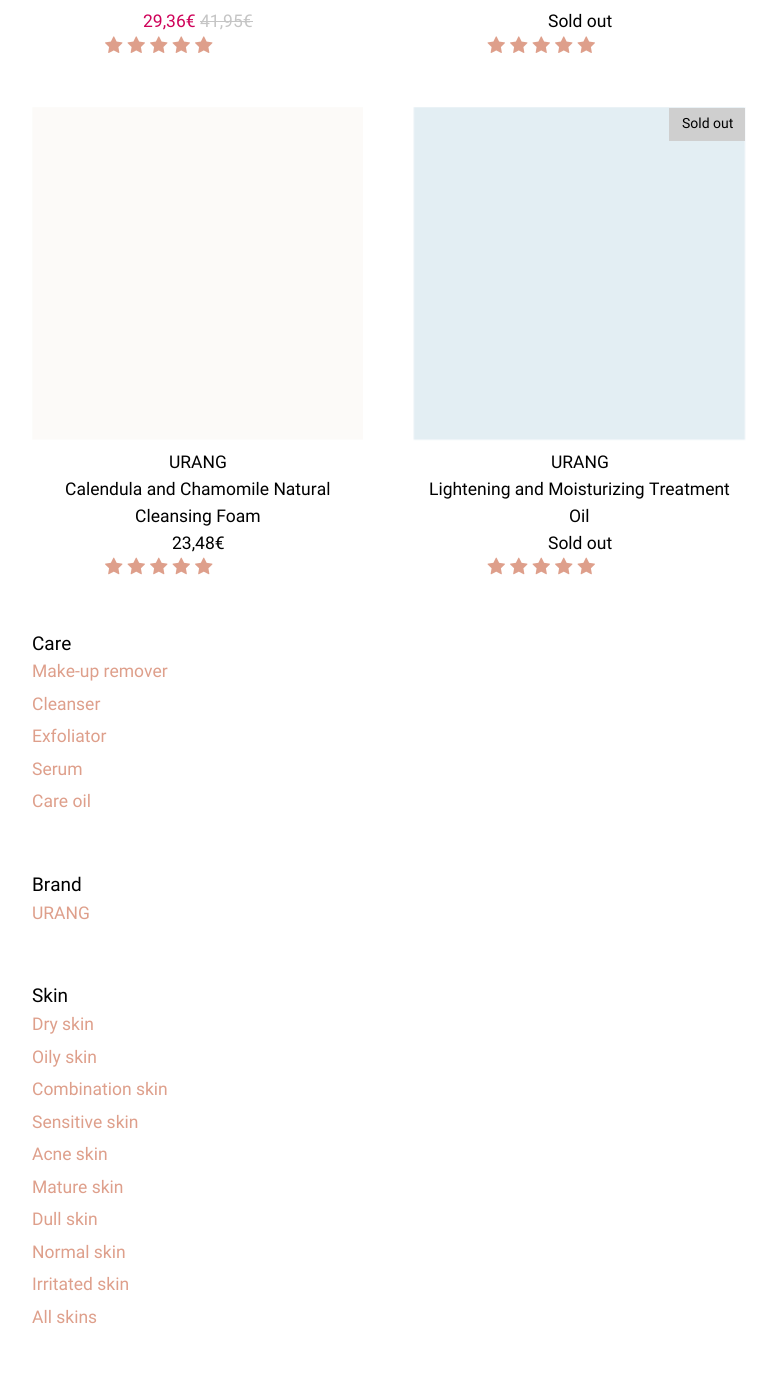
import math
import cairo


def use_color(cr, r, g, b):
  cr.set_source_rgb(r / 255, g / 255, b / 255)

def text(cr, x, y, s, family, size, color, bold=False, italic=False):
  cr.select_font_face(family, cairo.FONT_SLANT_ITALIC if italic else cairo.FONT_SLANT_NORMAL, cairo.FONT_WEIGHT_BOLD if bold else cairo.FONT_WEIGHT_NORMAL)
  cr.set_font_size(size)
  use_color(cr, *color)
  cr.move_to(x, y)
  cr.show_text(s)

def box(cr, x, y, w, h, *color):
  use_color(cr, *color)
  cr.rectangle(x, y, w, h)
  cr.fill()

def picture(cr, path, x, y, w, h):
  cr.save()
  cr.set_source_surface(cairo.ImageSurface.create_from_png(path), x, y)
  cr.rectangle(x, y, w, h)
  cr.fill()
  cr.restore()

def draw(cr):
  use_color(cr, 255, 255, 255)
  cr.paint()
  box(cr, 200, 21, 53, 1, 197, 197, 197)
  picture(cr, "img_01.png", 105, 36, 18, 17)
  picture(cr, "img_02.png", 127, 36, 18, 17)
  picture(cr, "img_01.png", 150, 36, 18, 17)
  picture(cr, "img_02.png", 172, 36, 18, 17)
  picture(cr, "img_01.png", 195, 36, 18, 17)
  picture(cr, "img_02.png", 487, 36, 18, 17)
  picture(cr, "img_01.png", 510, 36, 18, 17)
  picture(cr, "img_02.png", 532, 36, 18, 17)
  picture(cr, "img_01.png", 555, 36, 18, 17)
  picture(cr, "img_02.png", 577, 36, 18, 17)
  picture(cr, "img_03.png", 32, 107, 331, 333)
  picture(cr, "img_04.png", 105, 557, 18, 18)
  picture(cr, "img_05.png", 127, 557, 18, 18)
  picture(cr, "img_04.png", 150, 557, 18, 18)
  picture(cr, "img_05.png", 172, 557, 18, 18)
  picture(cr, "img_04.png", 195, 557, 18, 18)
  picture(cr, "img_06.png", 413, 107, 333, 334)
  box(cr, 669, 108, 76, 33, 207, 207, 207)
  picture(cr, "img_05.png", 487, 557, 18, 18)
  picture(cr, "img_04.png", 510, 557, 18, 18)
  picture(cr, "img_05.png", 532, 557, 18, 18)
  picture(cr, "img_04.png", 555, 557, 18, 18)
  picture(cr, "img_05.png", 577, 557, 18, 18)
  text(cr, 143, 27, "29,36€", "Roboto", 17.5, (207, 2, 89))
  text(cr, 200, 27, "41,95€", "Roboto", 17.5, (197, 197, 197))
  text(cr, 548, 27, "Sold out", "Roboto", 17.5, (0, 0, 0))
  text(cr, 169, 468, "URANG", "Roboto", 17.5, (0, 0, 0))
  text(cr, 65, 495, "Calendula and Chamomile Natural", "Roboto", 17.5, (0, 0, 0))
  text(cr, 135, 522, "Cleansing Foam", "Roboto", 17.5, (0, 0, 0))
  text(cr, 172, 549, "23,48€", "Roboto", 17.5, (0, 0, 0))
  text(cr, 682, 128, "Sold out", "Roboto", 14, (0, 0, 0))
  text(cr, 551, 468, "URANG", "Roboto", 17.5, (0, 0, 0))
  text(cr, 429, 495, "Lightening and Moisturizing Treatment", "Roboto", 17.5, (0, 0, 0))
  text(cr, 569, 522, "Oil", "Roboto", 17.5, (0, 0, 0))
  text(cr, 548, 549, "Sold out", "Roboto", 17.5, (0, 0, 0))
  text(cr, 32, 650, "Care", "Roboto", 19, (0, 0, 0))
  text(cr, 32, 677, "Make-up remover", "Roboto", 17.5, (222, 159, 139))
  text(cr, 32, 710, "Cleanser", "Roboto", 17.5, (222, 159, 139))
  text(cr, 32, 742, "Exfoliator", "Roboto", 17.5, (222, 159, 139))
  text(cr, 32, 775, "Serum", "Roboto", 17.5, (222, 159, 139))
  text(cr, 32, 807, "Care oil", "Roboto", 17.5, (222, 159, 139))
  text(cr, 32, 891, "Brand", "Roboto", 19, (0, 0, 0))
  text(cr, 32, 919, "URANG", "Roboto", 17.5, (222, 159, 139))
  text(cr, 32, 1002, "Skin", "Roboto", 19, (0, 0, 0))
  text(cr, 32, 1030, "Dry skin", "Roboto", 17.5, (222, 159, 139))
  text(cr, 32, 1063, "Oily skin", "Roboto", 17.5, (222, 159, 139))
  text(cr, 32, 1095, "Combination skin", "Roboto", 17.5, (222, 159, 139))
  text(cr, 32, 1128, "Sensitive skin", "Roboto", 17.5, (222, 159, 139))
  text(cr, 32, 1160, "Acne skin", "Roboto", 17.5, (222, 159, 139))
  text(cr, 32, 1193, "Mature skin", "Roboto", 17.5, (222, 159, 139))
  text(cr, 32, 1225, "Dull skin", "Roboto", 17.5, (222, 159, 139))
  text(cr, 32, 1258, "Normal skin", "Roboto", 17.5, (222, 159, 139))
  text(cr, 32, 1290, "Irritated skin", "Roboto", 17.5, (222, 159, 139))
  text(cr, 32, 1323, "All skins", "Roboto", 17.5, (222, 159, 139))


surface = cairo.ImageSurface(cairo.FORMAT_RGB24, 777, 1373)
cr = cairo.Context(surface)
options = cairo.FontOptions()
options.set_hint_metrics(cairo.HINT_METRICS_OFF)
options.set_hint_style(cairo.HINT_STYLE_NONE)
cr.set_font_options(options)
cr.set_miter_limit(4)
draw(cr)
surface.write_to_png("out.png")
